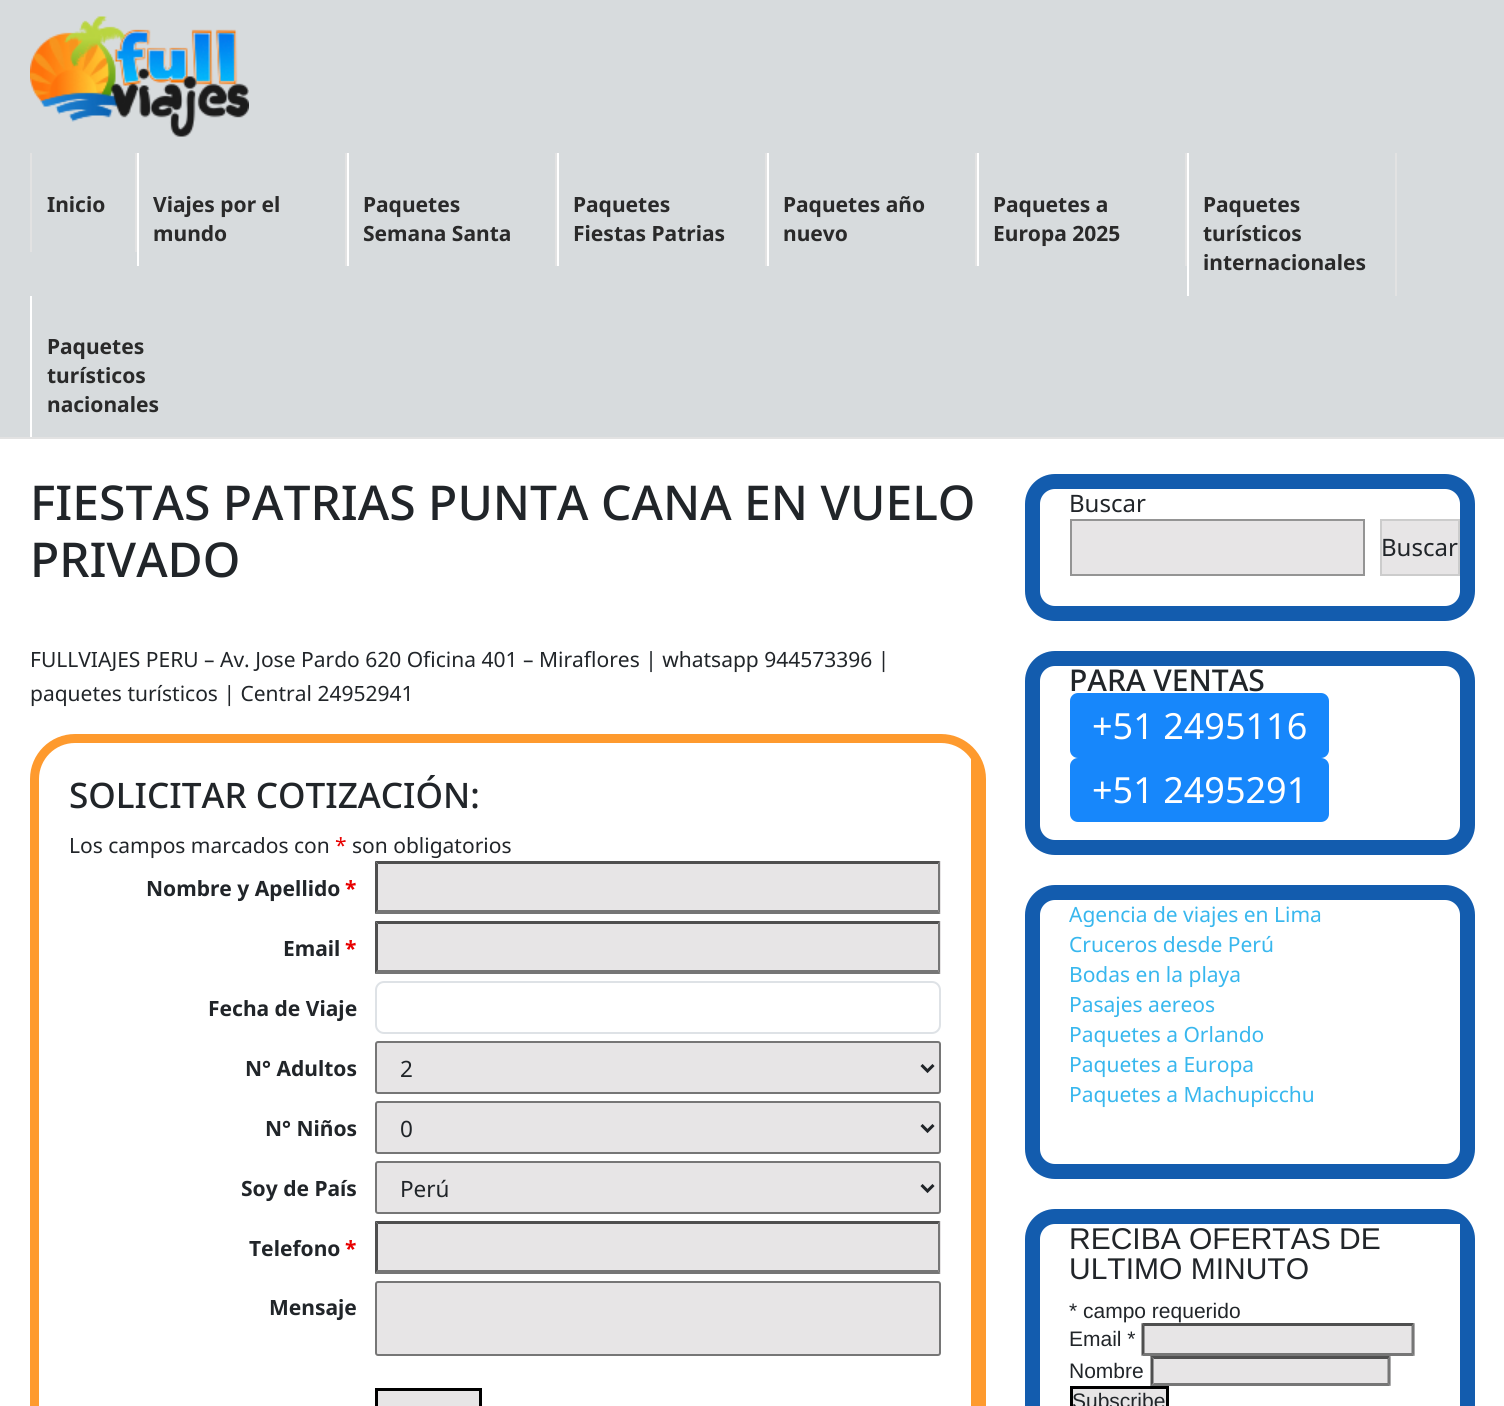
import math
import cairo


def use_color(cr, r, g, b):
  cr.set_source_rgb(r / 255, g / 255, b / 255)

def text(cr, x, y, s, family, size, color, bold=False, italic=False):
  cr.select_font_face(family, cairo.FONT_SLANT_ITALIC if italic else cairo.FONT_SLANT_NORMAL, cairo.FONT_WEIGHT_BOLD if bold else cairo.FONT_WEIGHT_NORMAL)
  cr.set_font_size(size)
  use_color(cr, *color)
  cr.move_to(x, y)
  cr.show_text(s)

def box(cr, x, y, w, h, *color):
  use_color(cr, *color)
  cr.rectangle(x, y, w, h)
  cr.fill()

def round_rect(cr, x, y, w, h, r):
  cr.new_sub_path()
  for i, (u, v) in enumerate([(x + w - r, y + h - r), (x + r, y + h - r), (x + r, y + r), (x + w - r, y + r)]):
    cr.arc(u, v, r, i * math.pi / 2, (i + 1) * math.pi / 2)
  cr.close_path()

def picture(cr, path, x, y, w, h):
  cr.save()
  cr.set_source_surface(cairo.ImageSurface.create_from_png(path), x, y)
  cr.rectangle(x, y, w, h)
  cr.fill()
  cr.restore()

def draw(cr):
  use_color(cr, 255, 255, 255)
  cr.paint()
  box(cr, 0, 0, 1504, 437, 215, 219, 221)
  picture(cr, "img_01.png", 30, 16, 219, 121)
  box(cr, 135, 153, 2, 99, 226, 226, 226)
  box(cr, 30, 153, 2, 99, 226, 226, 226)
  box(cr, 345, 153, 2, 113, 226, 226, 226)
  box(cr, 137, 153, 2, 113, 255, 255, 255)
  box(cr, 555, 153, 2, 113, 226, 226, 226)
  box(cr, 347, 153, 2, 113, 255, 255, 255)
  box(cr, 765, 153, 2, 113, 226, 226, 226)
  box(cr, 557, 153, 2, 113, 255, 255, 255)
  box(cr, 975, 153, 2, 113, 226, 226, 226)
  box(cr, 767, 153, 2, 113, 255, 255, 255)
  box(cr, 1185, 153, 2, 113, 226, 226, 226)
  box(cr, 977, 153, 2, 113, 255, 255, 255)
  box(cr, 1395, 153, 2, 143, 226, 226, 226)
  box(cr, 1187, 153, 2, 143, 255, 255, 255)
  box(cr, 30, 296, 2, 142, 255, 255, 255)
  box(cr, 0, 437, 1504, 2, 226, 226, 226)
  round_rect(cr, 34.5, 738.5, 947, 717, 40.5)
  use_color(cr, 254, 154, 46)
  cr.set_line_width(9)
  cr.stroke()
  box(cr, 971, 756, 6, 650, 254, 154, 46)
  box(cr, 375, 861, 566, 53, 231, 229, 230)
  use_color(cr, 79, 79, 79)
  cr.new_path()
  cr.move_to(375, 861)
  cr.line_to(940, 861)
  cr.line_to(938, 864)
  cr.line_to(378, 864)
  cr.close_path()
  cr.fill()
  use_color(cr, 118, 118, 118)
  cr.new_path()
  cr.move_to(940, 861)
  cr.line_to(940, 914)
  cr.line_to(938, 910)
  cr.line_to(938, 864)
  cr.close_path()
  cr.fill()
  cr.new_path()
  cr.move_to(940, 914)
  cr.line_to(375, 914)
  cr.line_to(378, 910)
  cr.line_to(938, 910)
  cr.close_path()
  cr.fill()
  use_color(cr, 79, 79, 79)
  cr.new_path()
  cr.move_to(375, 914)
  cr.line_to(375, 861)
  cr.line_to(378, 864)
  cr.line_to(378, 910)
  cr.close_path()
  cr.fill()
  box(cr, 375, 921, 566, 53, 231, 229, 230)
  use_color(cr, 79, 79, 79)
  cr.new_path()
  cr.move_to(375, 921)
  cr.line_to(940, 921)
  cr.line_to(938, 924)
  cr.line_to(378, 924)
  cr.close_path()
  cr.fill()
  use_color(cr, 118, 118, 118)
  cr.new_path()
  cr.move_to(940, 921)
  cr.line_to(940, 974)
  cr.line_to(938, 970)
  cr.line_to(938, 924)
  cr.close_path()
  cr.fill()
  cr.new_path()
  cr.move_to(940, 974)
  cr.line_to(375, 974)
  cr.line_to(378, 970)
  cr.line_to(938, 970)
  cr.close_path()
  cr.fill()
  use_color(cr, 79, 79, 79)
  cr.new_path()
  cr.move_to(375, 974)
  cr.line_to(375, 921)
  cr.line_to(378, 924)
  cr.line_to(378, 970)
  cr.close_path()
  cr.fill()
  round_rect(cr, 376, 982, 564, 51, 8)
  use_color(cr, 222, 226, 230)
  cr.set_line_width(2)
  cr.stroke()
  use_color(cr, 231, 229, 230)
  round_rect(cr, 376, 1042, 564, 51, 2)
  cr.fill_preserve()
  use_color(cr, 118, 118, 118)
  cr.stroke()
  cr.new_path()
  cr.move_to(921.5, 1065)
  cr.line_to(927.5, 1071)
  cr.line_to(933.5, 1065)
  use_color(cr, 33, 37, 41)
  cr.set_line_width(3)
  cr.stroke()
  use_color(cr, 231, 229, 230)
  round_rect(cr, 376, 1102, 564, 51, 2)
  cr.fill_preserve()
  use_color(cr, 118, 118, 118)
  cr.set_line_width(2)
  cr.stroke()
  cr.new_path()
  cr.move_to(921.5, 1125)
  cr.line_to(927.5, 1131)
  cr.line_to(933.5, 1125)
  use_color(cr, 33, 37, 41)
  cr.set_line_width(3)
  cr.stroke()
  use_color(cr, 231, 229, 230)
  round_rect(cr, 376, 1162, 564, 51, 2)
  cr.fill_preserve()
  use_color(cr, 118, 118, 118)
  cr.set_line_width(2)
  cr.stroke()
  cr.new_path()
  cr.move_to(921.5, 1185)
  cr.line_to(927.5, 1191)
  cr.line_to(933.5, 1185)
  use_color(cr, 33, 37, 41)
  cr.set_line_width(3)
  cr.stroke()
  box(cr, 375, 1221, 566, 53, 231, 229, 230)
  use_color(cr, 79, 79, 79)
  cr.new_path()
  cr.move_to(375, 1221)
  cr.line_to(940, 1221)
  cr.line_to(938, 1224)
  cr.line_to(378, 1224)
  cr.close_path()
  cr.fill()
  use_color(cr, 118, 118, 118)
  cr.new_path()
  cr.move_to(940, 1221)
  cr.line_to(940, 1274)
  cr.line_to(938, 1270)
  cr.line_to(938, 1224)
  cr.close_path()
  cr.fill()
  cr.new_path()
  cr.move_to(940, 1274)
  cr.line_to(375, 1274)
  cr.line_to(378, 1270)
  cr.line_to(938, 1270)
  cr.close_path()
  cr.fill()
  use_color(cr, 79, 79, 79)
  cr.new_path()
  cr.move_to(375, 1274)
  cr.line_to(375, 1221)
  cr.line_to(378, 1224)
  cr.line_to(378, 1270)
  cr.close_path()
  cr.fill()
  use_color(cr, 231, 229, 230)
  round_rect(cr, 376, 1282, 564, 73, 2)
  cr.fill_preserve()
  use_color(cr, 118, 118, 118)
  cr.set_line_width(2)
  cr.stroke()
  use_color(cr, 231, 229, 230)
  cr.rectangle(376.5, 1389.5, 104, 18)
  cr.fill_preserve()
  use_color(cr, 0, 0, 0)
  cr.set_line_width(3)
  cr.stroke()
  round_rect(cr, 1032.5, 481.5, 435, 132, 22.5)
  use_color(cr, 19, 92, 174)
  cr.set_line_width(15)
  cr.stroke()
  use_color(cr, 231, 229, 230)
  cr.rectangle(1071, 520, 293, 55)
  cr.fill_preserve()
  use_color(cr, 148, 148, 148)
  cr.set_line_width(2)
  cr.stroke()
  use_color(cr, 231, 229, 230)
  cr.rectangle(1381, 520, 78, 55)
  cr.fill_preserve()
  use_color(cr, 204, 204, 204)
  cr.stroke()
  round_rect(cr, 1032.5, 658.5, 435, 189, 22.5)
  use_color(cr, 19, 92, 174)
  cr.set_line_width(15)
  cr.stroke()
  use_color(cr, 23, 135, 251)
  round_rect(cr, 1070, 693, 259, 65, 8)
  cr.fill()
  round_rect(cr, 1070, 758, 259, 64, 8)
  cr.fill()
  round_rect(cr, 1032.5, 892.5, 435, 279, 22.5)
  use_color(cr, 19, 92, 174)
  cr.stroke()
  round_rect(cr, 1032.5, 1216.5, 435, 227, 22.5)
  cr.stroke()
  box(cr, 1445, 1224, 15, 15, 255, 255, 255)
  box(cr, 1142, 1323, 273, 33, 231, 229, 230)
  use_color(cr, 79, 79, 79)
  cr.new_path()
  cr.move_to(1142, 1323)
  cr.line_to(1414, 1323)
  cr.line_to(1412, 1326)
  cr.line_to(1144, 1326)
  cr.close_path()
  cr.fill()
  use_color(cr, 118, 118, 118)
  cr.new_path()
  cr.move_to(1414.5, 1323)
  cr.line_to(1414.5, 1356)
  cr.line_to(1411.5, 1353)
  cr.line_to(1411.5, 1326)
  cr.close_path()
  cr.fill()
  cr.new_path()
  cr.move_to(1414, 1356)
  cr.line_to(1142, 1356)
  cr.line_to(1144, 1353)
  cr.line_to(1412, 1353)
  cr.close_path()
  cr.fill()
  use_color(cr, 79, 79, 79)
  cr.new_path()
  cr.move_to(1141.5, 1356)
  cr.line_to(1141.5, 1323)
  cr.line_to(1144.5, 1326)
  cr.line_to(1144.5, 1353)
  cr.close_path()
  cr.fill()
  box(cr, 1151, 1356, 240, 30, 231, 229, 230)
  use_color(cr, 79, 79, 79)
  cr.new_path()
  cr.move_to(1150, 1356)
  cr.line_to(1390, 1356)
  cr.line_to(1388, 1359)
  cr.line_to(1154, 1359)
  cr.close_path()
  cr.fill()
  use_color(cr, 118, 118, 118)
  cr.new_path()
  cr.move_to(1390.5, 1356)
  cr.line_to(1390.5, 1386)
  cr.line_to(1387.5, 1383)
  cr.line_to(1387.5, 1359)
  cr.close_path()
  cr.fill()
  cr.new_path()
  cr.move_to(1390, 1386)
  cr.line_to(1150, 1386)
  cr.line_to(1154, 1383)
  cr.line_to(1388, 1383)
  cr.close_path()
  cr.fill()
  use_color(cr, 79, 79, 79)
  cr.new_path()
  cr.move_to(1150.5, 1386)
  cr.line_to(1150.5, 1356)
  cr.line_to(1153.5, 1359)
  cr.line_to(1153.5, 1383)
  cr.close_path()
  cr.fill()
  use_color(cr, 231, 229, 230)
  cr.rectangle(1071.5, 1387.5, 96, 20)
  cr.fill_preserve()
  use_color(cr, 0, 0, 0)
  cr.set_line_width(3)
  cr.stroke()
  text(cr, 47, 212, "Inicio", "Noto Sans", 21, (42, 42, 42), bold=True)
  text(cr, 153, 212, "Viajes por el", "Noto Sans", 21, (42, 42, 42), bold=True)
  text(cr, 153, 241, "mundo", "Noto Sans", 21, (42, 42, 42), bold=True)
  text(cr, 363, 212, "Paquetes", "Noto Sans", 21, (42, 42, 42), bold=True)
  text(cr, 363, 241, "Semana Santa", "Noto Sans", 21, (42, 42, 42), bold=True)
  text(cr, 573, 212, "Paquetes", "Noto Sans", 21, (42, 42, 42), bold=True)
  text(cr, 573, 241, "Fiestas Patrias", "Noto Sans", 21, (42, 42, 42), bold=True)
  text(cr, 783, 212, "Paquetes año", "Noto Sans", 21, (42, 42, 42), bold=True)
  text(cr, 783, 241, "nuevo", "Noto Sans", 21, (42, 42, 42), bold=True)
  text(cr, 993, 212, "Paquetes a", "Noto Sans", 21, (42, 42, 42), bold=True)
  text(cr, 993, 241, "Europa 2025", "Noto Sans", 21, (42, 42, 42), bold=True)
  text(cr, 1203, 212, "Paquetes", "Noto Sans", 21, (42, 42, 42), bold=True)
  text(cr, 1203, 241, "turísticos", "Noto Sans", 21, (42, 42, 42), bold=True)
  text(cr, 1203, 270, "internacionales", "Noto Sans", 21, (42, 42, 42), bold=True)
  text(cr, 47, 354, "Paquetes", "Noto Sans", 21, (42, 42, 42), bold=True)
  text(cr, 47, 383, "turísticos", "Noto Sans", 21, (42, 42, 42), bold=True)
  text(cr, 47, 412, "nacionales", "Noto Sans", 21, (42, 42, 42), bold=True)
  text(cr, 30, 520, "FIESTAS PATRIAS PUNTA CANA EN VUELO", "Noto Sans Medium", 48, (33, 37, 41))
  text(cr, 30, 577, "PRIVADO", "Noto Sans Medium", 48, (33, 37, 41))
  text(cr, 30, 667, "FULLVIAJES PERU – Av. Jose Pardo 620 Oficina 401 – Miraflores | whatsapp 944573396 |", "Noto Sans", 21, (33, 37, 41))
  text(cr, 30, 701, "paquetes turísticos | Central 24952941", "Noto Sans", 21, (33, 37, 41))
  text(cr, 69, 808, "SOLICITAR COTIZACIÓN:", "Noto Sans Medium", 35.1, (33, 37, 41))
  text(cr, 69, 853, "Los campos marcados con", "Noto Sans", 21, (33, 37, 41))
  text(cr, 335, 853, "*", "Noto Sans", 21, (232, 0, 0))
  text(cr, 352, 853, "son obligatorios", "Noto Sans", 21, (33, 37, 41))
  text(cr, 146, 896, "Nombre y Apellido", "Noto Sans", 21, (33, 37, 41), bold=True)
  text(cr, 345, 896, "*", "Noto Sans", 21, (232, 0, 0), bold=True)
  text(cr, 283, 956, "Email", "Noto Sans", 21, (33, 37, 41), bold=True)
  text(cr, 345, 956, "*", "Noto Sans", 21, (232, 0, 0), bold=True)
  text(cr, 208, 1016, "Fecha de Viaje", "Noto Sans", 21, (33, 37, 41), bold=True)
  text(cr, 245, 1076, "N° Adultos", "Noto Sans", 21, (33, 37, 41), bold=True)
  text(cr, 400, 1077, "2", "Noto Sans", 22.5, (33, 37, 41))
  text(cr, 265, 1136, "N° Niños", "Noto Sans", 21, (33, 37, 41), bold=True)
  text(cr, 400, 1137, "0", "Noto Sans", 22.5, (33, 37, 41))
  text(cr, 241, 1196, "Soy de País", "Noto Sans", 21, (33, 37, 41), bold=True)
  text(cr, 400, 1197, "Perú", "Noto Sans", 22.5, (33, 37, 41))
  text(cr, 249, 1256, "Telefono", "Noto Sans", 21, (33, 37, 41), bold=True)
  text(cr, 345, 1256, "*", "Noto Sans", 21, (232, 0, 0), bold=True)
  text(cr, 269, 1315, "Mensaje", "Noto Sans", 21, (33, 37, 41), bold=True)
  text(cr, 1069, 512, "Buscar", "Noto Sans", 24, (33, 37, 41))
  text(cr, 1381, 556, "Buscar", "Noto Sans", 24, (33, 37, 41))
  text(cr, 1069, 691, "PARA VENTAS", "Noto Sans Medium", 30, (33, 37, 41))
  text(cr, 1092, 739, "+51 2495116", "Noto Sans", 36, (255, 255, 255))
  text(cr, 1092, 803, "+51 2495291", "Noto Sans", 36, (255, 255, 255))
  text(cr, 1069, 922, "Agencia de viajes en Lima", "Noto Sans", 21, (56, 183, 238))
  text(cr, 1069, 952, "Cruceros desde Perú", "Noto Sans", 21, (56, 183, 238))
  text(cr, 1069, 982, "Bodas en la playa", "Noto Sans", 21, (56, 183, 238))
  text(cr, 1069, 1012, "Pasajes aereos", "Noto Sans", 21, (56, 183, 238))
  text(cr, 1069, 1042, "Paquetes a Orlando", "Noto Sans", 21, (56, 183, 238))
  text(cr, 1069, 1072, "Paquetes a Europa", "Noto Sans", 21, (56, 183, 238))
  text(cr, 1069, 1102, "Paquetes a Machupicchu", "Noto Sans", 21, (56, 183, 238))
  text(cr, 1069, 1249, "RECIBA OFERTAS DE", "Liberation Sans", 30, (33, 37, 41))
  text(cr, 1069, 1279, "ULTIMO MINUTO", "Liberation Sans", 30, (33, 37, 41))
  text(cr, 1069, 1318, "* campo requerido", "Liberation Sans", 21, (33, 37, 41))
  text(cr, 1069, 1346, "Email *", "Liberation Sans", 21, (33, 37, 41))
  text(cr, 1069, 1378, "Nombre", "Liberation Sans", 21, (33, 37, 41))
  text(cr, 1072, 1408, "Subscribe", "Liberation Sans", 21, (33, 37, 41))


surface = cairo.ImageSurface(cairo.FORMAT_RGB24, 1504, 1406)
cr = cairo.Context(surface)
options = cairo.FontOptions()
options.set_hint_metrics(cairo.HINT_METRICS_OFF)
options.set_hint_style(cairo.HINT_STYLE_NONE)
cr.set_font_options(options)
cr.set_miter_limit(4)
draw(cr)
surface.write_to_png("out.png")
